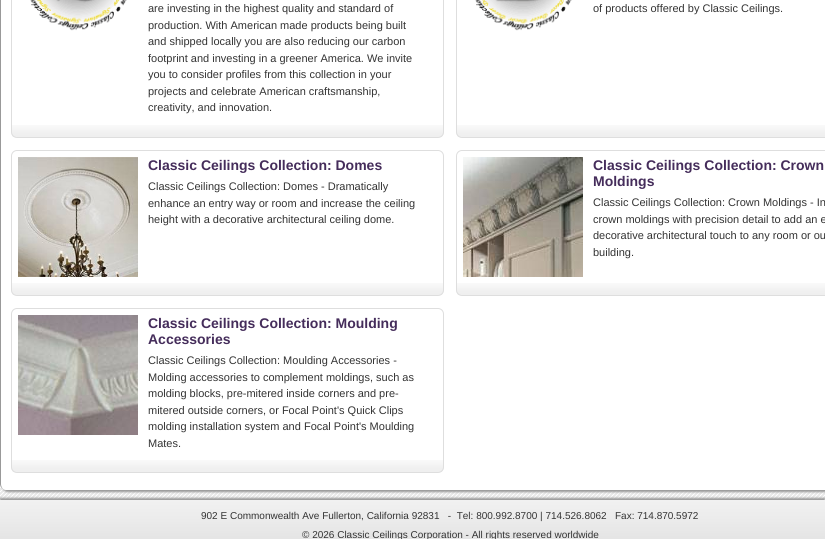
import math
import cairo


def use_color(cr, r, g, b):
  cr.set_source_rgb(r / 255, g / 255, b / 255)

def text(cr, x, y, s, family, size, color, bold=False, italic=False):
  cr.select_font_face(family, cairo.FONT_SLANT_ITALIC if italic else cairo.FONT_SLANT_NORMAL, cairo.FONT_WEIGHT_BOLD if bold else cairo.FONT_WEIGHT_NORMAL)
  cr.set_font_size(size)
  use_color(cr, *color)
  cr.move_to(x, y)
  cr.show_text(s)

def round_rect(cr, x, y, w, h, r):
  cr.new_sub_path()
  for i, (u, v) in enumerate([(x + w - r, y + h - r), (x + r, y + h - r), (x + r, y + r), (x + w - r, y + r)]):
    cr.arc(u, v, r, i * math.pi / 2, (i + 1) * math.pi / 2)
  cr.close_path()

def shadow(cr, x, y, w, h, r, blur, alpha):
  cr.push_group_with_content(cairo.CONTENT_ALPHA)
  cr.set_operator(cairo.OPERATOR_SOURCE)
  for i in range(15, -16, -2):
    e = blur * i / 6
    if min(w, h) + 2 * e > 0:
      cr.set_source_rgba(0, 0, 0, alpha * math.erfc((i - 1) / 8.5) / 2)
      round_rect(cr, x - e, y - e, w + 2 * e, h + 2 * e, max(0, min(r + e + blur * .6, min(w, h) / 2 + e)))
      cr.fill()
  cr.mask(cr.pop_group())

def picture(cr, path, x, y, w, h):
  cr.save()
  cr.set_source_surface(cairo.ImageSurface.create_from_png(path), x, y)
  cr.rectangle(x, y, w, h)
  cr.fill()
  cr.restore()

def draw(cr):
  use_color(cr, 255, 255, 255)
  cr.paint()
  picture(cr, "img_01.png", 0, 484, 825, 16)
  use_color(cr, 153, 153, 153)
  shadow(cr, 2, -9, 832, 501, 6, 1, 1)
  use_color(cr, 255, 255, 255)
  round_rect(cr, 0, -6, 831, 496, 6)
  cr.fill()
  use_color(cr, 153, 153, 153)
  cr.set_fill_rule(cairo.FILL_RULE_EVEN_ODD)
  cr.new_path()
  cr.move_to(6, -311)
  cr.line_to(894, -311)
  cr.curve_to(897, -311, 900, -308, 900, -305)
  cr.line_to(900, 484)
  cr.curve_to(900, 487, 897, 490, 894, 490)
  cr.line_to(6, 490)
  cr.curve_to(3, 490, 0, 487, 0, 484)
  cr.line_to(0, -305)
  cr.curve_to(0, -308, 3, -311, 6, -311)
  cr.close_path()
  cr.move_to(6, -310)
  cr.line_to(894, -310)
  cr.curve_to(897, -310, 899, -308, 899, -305)
  cr.line_to(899, 484)
  cr.curve_to(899, 487, 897, 490, 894, 490)
  cr.line_to(6, 490)
  cr.curve_to(3, 490, 1, 487, 1, 484)
  cr.line_to(1, -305)
  cr.curve_to(1, -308, 3, -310, 6, -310)
  cr.close_path()
  cr.fill()
  picture(cr, "img_02.png", 11, 125, 433, 12)
  round_rect(cr, 11.5, -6.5, 432, 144, 5.5)
  use_color(cr, 222, 222, 222)
  cr.set_line_width(1)
  cr.stroke()
  picture(cr, "img_03.png", 30, 0, 97, 31)
  picture(cr, "img_04.png", 456, 125, 369, 12)
  round_rect(cr, 456.5, -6.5, 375, 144, 5.5)
  cr.stroke()
  picture(cr, "img_05.png", 475, 0, 97, 31)
  picture(cr, "img_02.png", 11, 283, 433, 12)
  round_rect(cr, 11.5, 150.5, 432, 145, 5.5)
  cr.stroke()
  picture(cr, "img_06.png", 18, 157, 120, 120)
  picture(cr, "img_04.png", 456, 283, 369, 12)
  round_rect(cr, 456.5, 150.5, 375, 145, 5.5)
  cr.stroke()
  picture(cr, "img_07.png", 463, 157, 120, 120)
  picture(cr, "img_02.png", 11, 460, 433, 12)
  round_rect(cr, 11.5, 308.5, 432, 164, 5.5)
  cr.stroke()
  picture(cr, "img_08.png", 18, 315, 120, 120)
  use_color(cr, 153, 153, 153)
  shadow(cr, 0, 498, 825, 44, 0, 1, 1)
  picture(cr, "img_09.png", 0, 500, 825, 39)
  text(cr, 148, 12, "are investing in the highest quality and standard of", "Liberation Sans", 11, (51, 51, 51))
  text(cr, 148, 29, "production. With American made products being built", "Liberation Sans", 11, (51, 51, 51))
  text(cr, 148, 45, "and shipped locally you are also reducing our carbon", "Liberation Sans", 11, (51, 51, 51))
  text(cr, 148, 62, "footprint and investing in a greener America. We invite", "Liberation Sans", 11, (51, 51, 51))
  text(cr, 148, 78, "you to consider profiles from this collection in your", "Liberation Sans", 11, (51, 51, 51))
  text(cr, 148, 95, "projects and celebrate American craftsmanship,", "Liberation Sans", 11, (51, 51, 51))
  text(cr, 148, 111, "creativity, and innovation.", "Liberation Sans", 11, (51, 51, 51))
  text(cr, 593, 12, "of products offered by Classic Ceilings.", "Liberation Sans", 11, (51, 51, 51))
  text(cr, 148, 170, "Classic Ceilings Collection: Domes", "Liberation Sans", 14, (69, 45, 91), bold=True)
  text(cr, 148, 190, "Classic Ceilings Collection: Domes - Dramatically", "Liberation Sans", 11, (51, 51, 51))
  text(cr, 148, 207, "enhance an entry way or room and increase the ceiling", "Liberation Sans", 11, (51, 51, 51))
  text(cr, 148, 223, "height with a decorative architectural ceiling dome.", "Liberation Sans", 11, (51, 51, 51))
  text(cr, 593, 170, "Classic Ceilings Collection: Crown", "Liberation Sans", 14, (69, 45, 91), bold=True)
  text(cr, 593, 186, "Moldings", "Liberation Sans", 14, (69, 45, 91), bold=True)
  text(cr, 593, 206, "Classic Ceilings Collection: Crown Moldings - In", "Liberation Sans", 11, (51, 51, 51))
  text(cr, 593, 223, "crown moldings with precision detail to add an e", "Liberation Sans", 11, (51, 51, 51))
  text(cr, 593, 239, "decorative architectural touch to any room or ou", "Liberation Sans", 11, (51, 51, 51))
  text(cr, 593, 256, "building.", "Liberation Sans", 11, (51, 51, 51))
  text(cr, 148, 328, "Classic Ceilings Collection: Moulding", "Liberation Sans", 14, (69, 45, 91), bold=True)
  text(cr, 148, 344, "Accessories", "Liberation Sans", 14, (69, 45, 91), bold=True)
  text(cr, 148, 364, "Classic Ceilings Collection: Moulding Accessories -", "Liberation Sans", 11, (51, 51, 51))
  text(cr, 148, 381, "Molding accessories to complement moldings, such as", "Liberation Sans", 11, (51, 51, 51))
  text(cr, 148, 397, "molding blocks, pre-mitered inside corners and pre-", "Liberation Sans", 11, (51, 51, 51))
  text(cr, 148, 414, "mitered outside corners, or Focal Point's Quick Clips", "Liberation Sans", 11, (51, 51, 51))
  text(cr, 148, 430, "molding installation system and Focal Point's Moulding", "Liberation Sans", 11, (51, 51, 51))
  text(cr, 148, 447, "Mates.", "Liberation Sans", 11, (51, 51, 51))
  text(cr, 201, 519, "902 E Commonwealth Ave Fullerton, California 92831   -  Tel: 800.992.8700 | 714.526.8062   Fax: 714.870.5972", "Liberation Sans", 10, (51, 51, 51))
  text(cr, 302, 538, "© 2026 Classic Ceilings Corporation - All rights reserved worldwide", "Liberation Sans", 10, (51, 51, 51))


surface = cairo.ImageSurface(cairo.FORMAT_RGB24, 825, 539)
cr = cairo.Context(surface)
options = cairo.FontOptions()
options.set_hint_metrics(cairo.HINT_METRICS_OFF)
options.set_hint_style(cairo.HINT_STYLE_NONE)
cr.set_font_options(options)
cr.set_miter_limit(4)
draw(cr)
surface.write_to_png("out.png")
